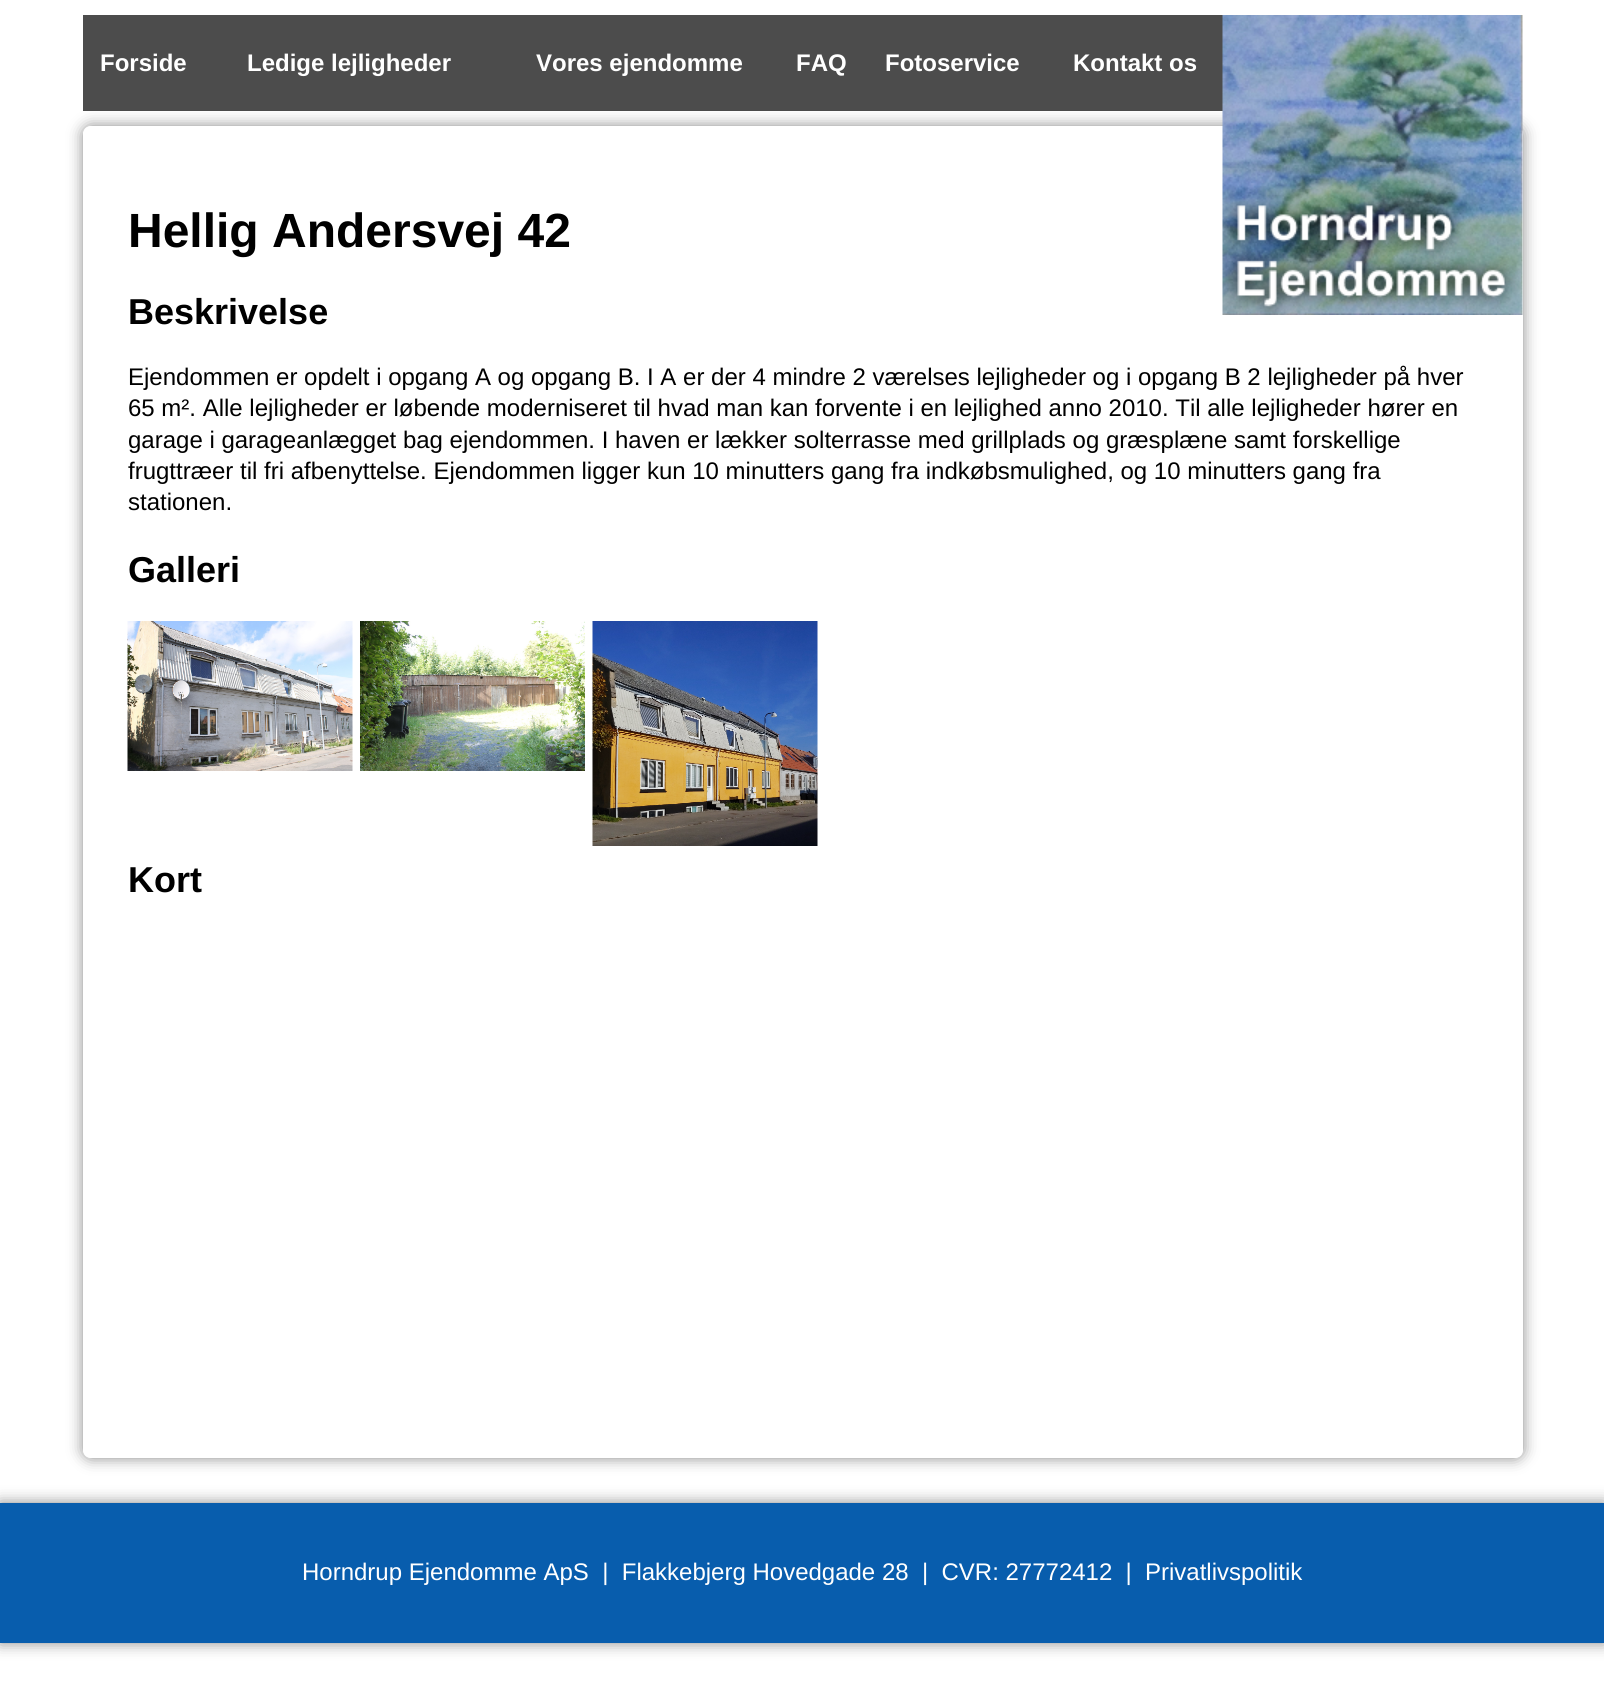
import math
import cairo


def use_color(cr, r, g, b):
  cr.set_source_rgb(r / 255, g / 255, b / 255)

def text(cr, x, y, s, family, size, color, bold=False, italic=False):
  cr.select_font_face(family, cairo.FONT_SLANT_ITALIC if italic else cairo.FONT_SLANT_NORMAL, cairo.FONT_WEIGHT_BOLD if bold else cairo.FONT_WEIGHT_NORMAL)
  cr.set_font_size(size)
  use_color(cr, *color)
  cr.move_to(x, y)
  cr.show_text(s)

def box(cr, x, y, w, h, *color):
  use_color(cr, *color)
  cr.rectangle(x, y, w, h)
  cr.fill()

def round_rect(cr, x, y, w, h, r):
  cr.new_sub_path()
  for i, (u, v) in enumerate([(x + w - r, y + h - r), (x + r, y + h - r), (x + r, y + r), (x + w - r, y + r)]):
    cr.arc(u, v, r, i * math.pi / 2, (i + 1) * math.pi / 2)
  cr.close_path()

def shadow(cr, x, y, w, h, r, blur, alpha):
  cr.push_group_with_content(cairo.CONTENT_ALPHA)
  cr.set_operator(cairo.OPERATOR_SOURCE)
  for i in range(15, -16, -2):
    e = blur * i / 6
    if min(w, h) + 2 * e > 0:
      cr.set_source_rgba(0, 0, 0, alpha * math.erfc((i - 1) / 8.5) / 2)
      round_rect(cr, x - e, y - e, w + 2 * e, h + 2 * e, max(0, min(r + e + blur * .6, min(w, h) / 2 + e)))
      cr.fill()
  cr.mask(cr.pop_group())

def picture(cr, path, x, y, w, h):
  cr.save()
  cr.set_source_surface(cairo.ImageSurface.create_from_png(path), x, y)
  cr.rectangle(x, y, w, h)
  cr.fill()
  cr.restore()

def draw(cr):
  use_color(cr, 255, 255, 255)
  cr.paint()
  cr.save()
  cr.set_fill_rule(cairo.FILL_RULE_EVEN_ODD)
  cr.new_path()
  cr.move_to(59, 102)
  cr.line_to(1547, 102)
  cr.line_to(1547, 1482)
  cr.line_to(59, 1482)
  cr.close_path()
  cr.move_to(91, 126)
  cr.line_to(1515, 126)
  cr.curve_to(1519.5, 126, 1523, 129.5, 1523, 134)
  cr.line_to(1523, 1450)
  cr.curve_to(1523, 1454.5, 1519.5, 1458, 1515, 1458)
  cr.line_to(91, 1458)
  cr.curve_to(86.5, 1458, 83, 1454.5, 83, 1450)
  cr.line_to(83, 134)
  cr.curve_to(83, 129.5, 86.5, 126, 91, 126)
  cr.close_path()
  cr.clip()
  use_color(cr, 136, 136, 136)
  shadow(cr, 83, 126, 1440, 1332, 8, 7.5, 1)
  cr.restore()
  box(cr, 83, 15, 1140, 96, 76, 76, 76)
  picture(cr, "img_01.png", 1222, 15, 301, 300)
  picture(cr, "img_02.png", 127, 621, 226, 150)
  picture(cr, "img_03.png", 360, 621, 225, 150)
  picture(cr, "img_04.png", 592, 621, 226, 225)
  use_color(cr, 136, 136, 136)
  shadow(cr, 0, 1503, 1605, 140, 0, 7.5, 1)
  box(cr, 0, 1503, 1604, 140, 8, 93, 173)
  text(cr, 100, 71, "Forside", "Liberation Sans", 24, (255, 255, 255), bold=True)
  text(cr, 247, 71, "Ledige lejligheder", "Liberation Sans", 24, (255, 255, 255), bold=True)
  text(cr, 536, 71, "Vores ejendomme", "Liberation Sans", 24, (255, 255, 255), bold=True)
  text(cr, 796, 71, "FAQ", "Liberation Sans", 24, (255, 255, 255), bold=True)
  text(cr, 885, 71, "Fotoservice", "Liberation Sans", 24, (255, 255, 255), bold=True)
  text(cr, 1073, 71, "Kontakt os", "Liberation Sans", 24, (255, 255, 255), bold=True)
  text(cr, 128, 247, "Hellig Andersvej 42", "Liberation Sans", 48, (0, 0, 0), bold=True)
  text(cr, 128, 324, "Beskrivelse", "Liberation Sans", 36, (0, 0, 0), bold=True)
  text(cr, 128, 385, "Ejendommen er opdelt i opgang A og opgang B. I A er der 4 mindre 2 værelses lejligheder og i opgang B 2 lejligheder på hver", "Liberation Sans", 24, (0, 0, 0))
  text(cr, 128, 416, "65 m². Alle lejligheder er løbende moderniseret til hvad man kan forvente i en lejlighed anno 2010. Til alle lejligheder hører en", "Liberation Sans", 24, (0, 0, 0))
  text(cr, 128, 448, "garage i garageanlægget bag ejendommen. I haven er lækker solterrasse med grillplads og græsplæne samt forskellige", "Liberation Sans", 24, (0, 0, 0))
  text(cr, 128, 479, "frugttræer til fri afbenyttelse. Ejendommen ligger kun 10 minutters gang fra indkøbsmulighed, og 10 minutters gang fra", "Liberation Sans", 24, (0, 0, 0))
  text(cr, 128, 510, "stationen.", "Liberation Sans", 24, (0, 0, 0))
  text(cr, 128, 582, "Galleri", "Liberation Sans", 36, (0, 0, 0), bold=True)
  text(cr, 128, 892, "Kort", "Liberation Sans", 36, (0, 0, 0), bold=True)
  text(cr, 302, 1580, "Horndrup Ejendomme ApS  |  Flakkebjerg Hovedgade 28  |  CVR: 27772412  |", "Liberation Sans", 24, (255, 255, 255))
  text(cr, 1145, 1580, "Privatlivspolitik", "Liberation Sans", 24, (255, 255, 255))


surface = cairo.ImageSurface(cairo.FORMAT_RGB24, 1604, 1698)
cr = cairo.Context(surface)
options = cairo.FontOptions()
options.set_hint_metrics(cairo.HINT_METRICS_OFF)
options.set_hint_style(cairo.HINT_STYLE_NONE)
cr.set_font_options(options)
cr.set_miter_limit(4)
draw(cr)
surface.write_to_png("out.png")
